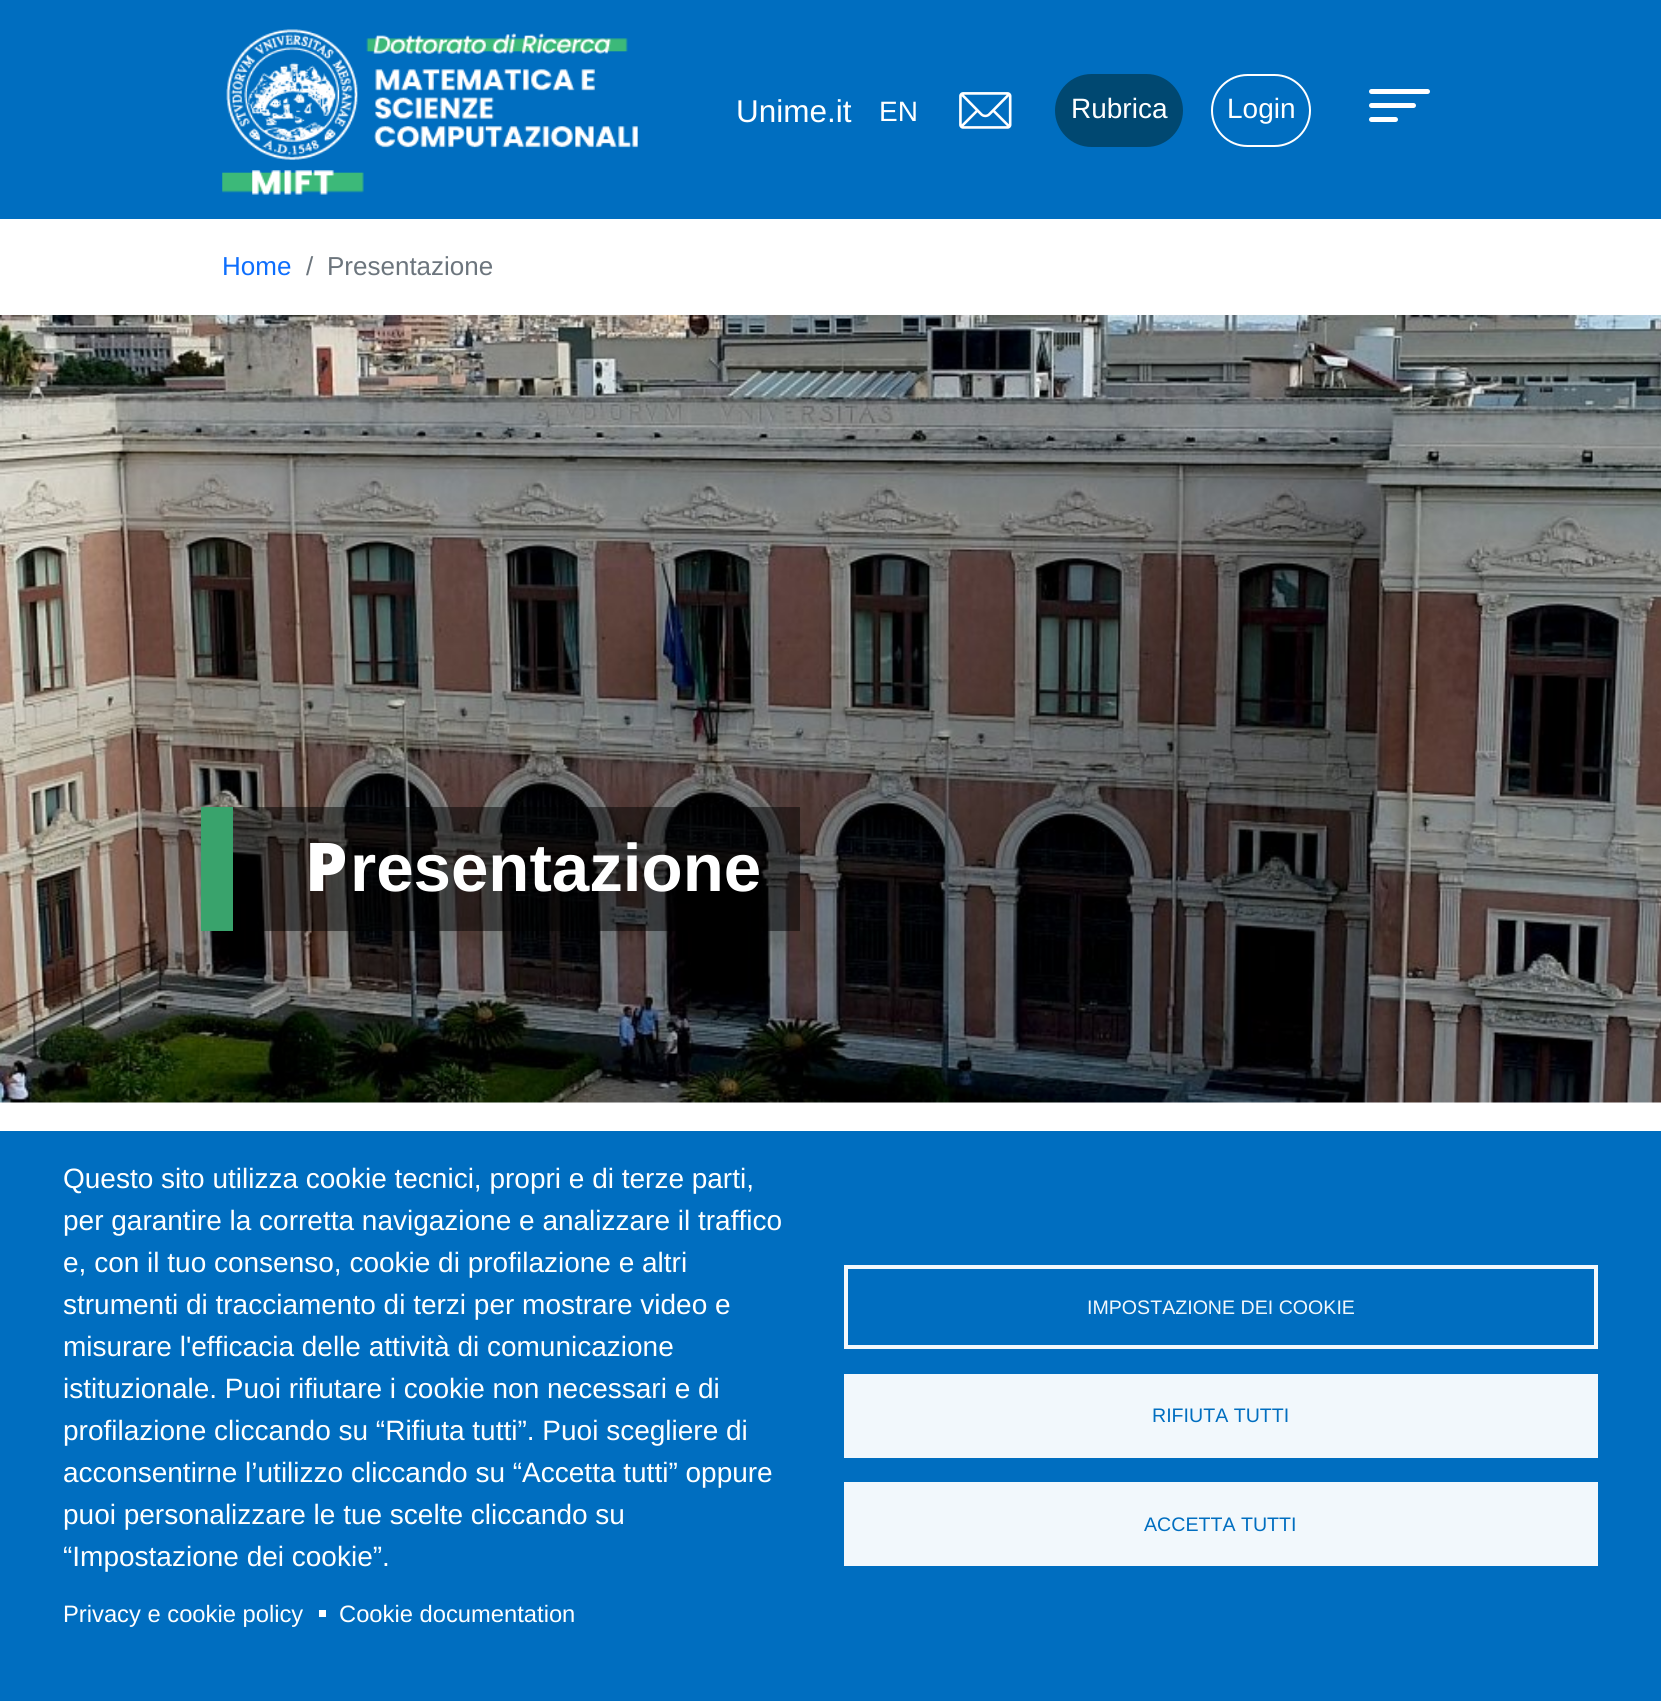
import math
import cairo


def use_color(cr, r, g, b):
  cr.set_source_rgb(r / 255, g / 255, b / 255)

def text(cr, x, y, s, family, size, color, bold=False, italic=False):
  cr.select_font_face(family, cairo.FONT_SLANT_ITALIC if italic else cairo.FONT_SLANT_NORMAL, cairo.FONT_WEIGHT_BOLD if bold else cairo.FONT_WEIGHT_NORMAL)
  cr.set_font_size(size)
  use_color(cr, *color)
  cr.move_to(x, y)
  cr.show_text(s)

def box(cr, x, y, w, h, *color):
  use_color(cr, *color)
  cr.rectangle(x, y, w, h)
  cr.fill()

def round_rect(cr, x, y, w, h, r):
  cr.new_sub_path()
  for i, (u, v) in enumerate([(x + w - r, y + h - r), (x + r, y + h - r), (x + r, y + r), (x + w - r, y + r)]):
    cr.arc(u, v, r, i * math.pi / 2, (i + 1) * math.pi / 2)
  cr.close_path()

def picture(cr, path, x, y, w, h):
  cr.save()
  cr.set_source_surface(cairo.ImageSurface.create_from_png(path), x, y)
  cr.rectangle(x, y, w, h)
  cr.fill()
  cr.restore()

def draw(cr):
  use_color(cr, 255, 255, 255)
  cr.paint()
  box(cr, 0, 0, 1661, 219, 0, 110, 192)
  picture(cr, "img_01.png", 222, 29, 416, 166)
  picture(cr, "img_02.png", 959, 92, 53, 37)
  use_color(cr, 0, 72, 113)
  round_rect(cr, 1056, 75, 126, 71, 35.5)
  cr.fill_preserve()
  cr.stroke()
  round_rect(cr, 1212, 75, 98, 71, 35.5)
  use_color(cr, 255, 255, 255)
  cr.stroke()
  round_rect(cr, 1369, 103, 47, 5, 2.5)
  cr.fill()
  round_rect(cr, 1369, 89, 61, 5, 2.5)
  cr.fill()
  round_rect(cr, 1369, 117, 29, 5, 2.5)
  cr.fill()
  picture(cr, "img_03.png", 0, 315, 1661, 788)
  cr.set_source_rgba(0, 0, 0, 0.49)
  cr.rectangle(233, 807, 567, 124)
  cr.fill()
  box(cr, 201, 807, 32, 124, 57, 163, 108)
  box(cr, 0, 1131, 1661, 570, 0, 110, 192)
  box(cr, 319, 1610, 7, 7, 255, 255, 255)
  cr.rectangle(846, 1267, 750, 80)
  use_color(cr, 242, 248, 252)
  cr.set_line_width(4)
  cr.stroke()
  box(cr, 844, 1374, 754, 84, 242, 248, 252)
  box(cr, 844, 1482, 754, 84, 242, 248, 252)
  text(cr, 736, 122, "Unime.it", "Liberation Sans", 31.5, (255, 255, 255))
  text(cr, 879, 121, "EN", "Liberation Sans", 28, (255, 255, 255))
  text(cr, 1071, 118, "Rubrica", "Liberation Sans", 28, (255, 255, 255))
  text(cr, 1227, 118, "Login", "Liberation Sans", 28, (255, 255, 255))
  text(cr, 222, 275, "Home", "Liberation Sans", 26, (13, 110, 253))
  text(cr, 306, 275, "/", "Liberation Sans", 26, (108, 117, 125))
  text(cr, 327, 275, "Presentazione", "Liberation Sans", 26, (108, 117, 125))
  text(cr, 305, 891, "P", "Noto Sans Black", 67.25, (255, 255, 255))
  text(cr, 350, 891, "resentazione", "Liberation Sans", 67.25, (255, 255, 255), bold=True)
  text(cr, 63, 1188, "Questo sito utilizza cookie tecnici, propri e di terze parti,", "Liberation Sans", 28, (255, 255, 255))
  text(cr, 63, 1230, "per garantire la corretta navigazione e analizzare il traffico", "Liberation Sans", 28, (255, 255, 255))
  text(cr, 63, 1272, "e, con il tuo consenso, cookie di profilazione e altri", "Liberation Sans", 28, (255, 255, 255))
  text(cr, 63, 1314, "strumenti di tracciamento di terzi per mostrare video e", "Liberation Sans", 28, (255, 255, 255))
  text(cr, 63, 1356, "misurare l'efficacia delle attività di comunicazione", "Liberation Sans", 28, (255, 255, 255))
  text(cr, 63, 1398, "istituzionale. Puoi rifiutare i cookie non necessari e di", "Liberation Sans", 28, (255, 255, 255))
  text(cr, 63, 1440, "profilazione cliccando su “Rifiuta tutti”. Puoi scegliere di", "Liberation Sans", 28, (255, 255, 255))
  text(cr, 63, 1482, "acconsentirne l’utilizzo cliccando su “Accetta tutti” oppure", "Liberation Sans", 28, (255, 255, 255))
  text(cr, 63, 1524, "puoi personalizzare le tue scelte cliccando su", "Liberation Sans", 28, (255, 255, 255))
  text(cr, 63, 1566, "“Impostazione dei cookie”.", "Liberation Sans", 28, (255, 255, 255))
  text(cr, 63, 1622, "Privacy e cookie policy", "Liberation Sans", 23.75, (255, 255, 255))
  text(cr, 339, 1622, "Cookie documentation", "Liberation Sans", 23.75, (255, 255, 255))
  text(cr, 1087, 1314, "IMPOSTAZIONE DEI COOKIE", "Liberation Sans", 19.6, (242, 248, 252))
  text(cr, 1152, 1422, "RIFIUTA TUTTI", "Liberation Sans", 19.6, (0, 110, 192))
  text(cr, 1144, 1531, "ACCETTA TUTTI", "Liberation Sans", 19.6, (0, 110, 192))


surface = cairo.ImageSurface(cairo.FORMAT_RGB24, 1661, 1701)
cr = cairo.Context(surface)
options = cairo.FontOptions()
options.set_hint_metrics(cairo.HINT_METRICS_OFF)
options.set_hint_style(cairo.HINT_STYLE_NONE)
cr.set_font_options(options)
cr.set_miter_limit(4)
draw(cr)
surface.write_to_png("out.png")
